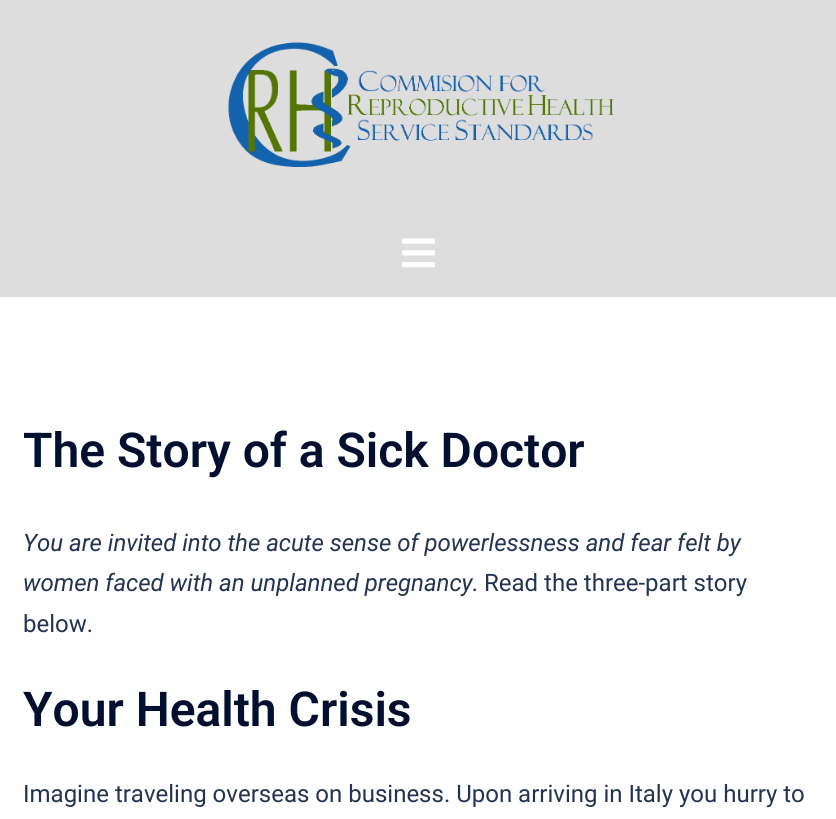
import math
import cairo


def use_color(cr, r, g, b):
  cr.set_source_rgb(r / 255, g / 255, b / 255)

def text(cr, x, y, s, family, size, color, bold=False, italic=False):
  cr.select_font_face(family, cairo.FONT_SLANT_ITALIC if italic else cairo.FONT_SLANT_NORMAL, cairo.FONT_WEIGHT_BOLD if bold else cairo.FONT_WEIGHT_NORMAL)
  cr.set_font_size(size)
  use_color(cr, *color)
  cr.move_to(x, y)
  cr.show_text(s)

def box(cr, x, y, w, h, *color):
  use_color(cr, *color)
  cr.rectangle(x, y, w, h)
  cr.fill()

def picture(cr, path, x, y, w, h):
  cr.save()
  cr.set_source_surface(cairo.ImageSurface.create_from_png(path), x, y)
  cr.rectangle(x, y, w, h)
  cr.fill()
  cr.restore()

def draw(cr):
  use_color(cr, 255, 255, 255)
  cr.paint()
  box(cr, 0, 0, 836, 297, 221, 221, 221)
  picture(cr, "img_01.png", 228, 42, 386, 125)
  picture(cr, "img_02.png", 402, 238, 33, 30)
  text(cr, 23, 467, "The Story of a Sick Doctor", "Roboto SemiBold", 48, (0, 16, 46))
  text(cr, 23, 551, "You are invited into the acute sense of powerlessness and fear felt by", "Roboto", 24, (35, 52, 82), italic=True)
  text(cr, 23, 591, "women faced with an unplanned pregnancy.", "Roboto", 24, (35, 52, 82), italic=True)
  text(cr, 484, 591, "Read the three-part story", "Roboto", 24, (35, 52, 82))
  text(cr, 23, 632, "below.", "Roboto", 24, (35, 52, 82))
  text(cr, 23, 726, "Your Health Crisis", "Roboto SemiBold", 48, (0, 16, 46))
  text(cr, 23, 802, "Imagine traveling overseas on business. Upon arriving in Italy you hurry to", "Roboto", 24, (35, 52, 82))


surface = cairo.ImageSurface(cairo.FORMAT_RGB24, 836, 819)
cr = cairo.Context(surface)
options = cairo.FontOptions()
options.set_hint_metrics(cairo.HINT_METRICS_OFF)
options.set_hint_style(cairo.HINT_STYLE_NONE)
cr.set_font_options(options)
cr.set_miter_limit(4)
draw(cr)
surface.write_to_png("out.png")
